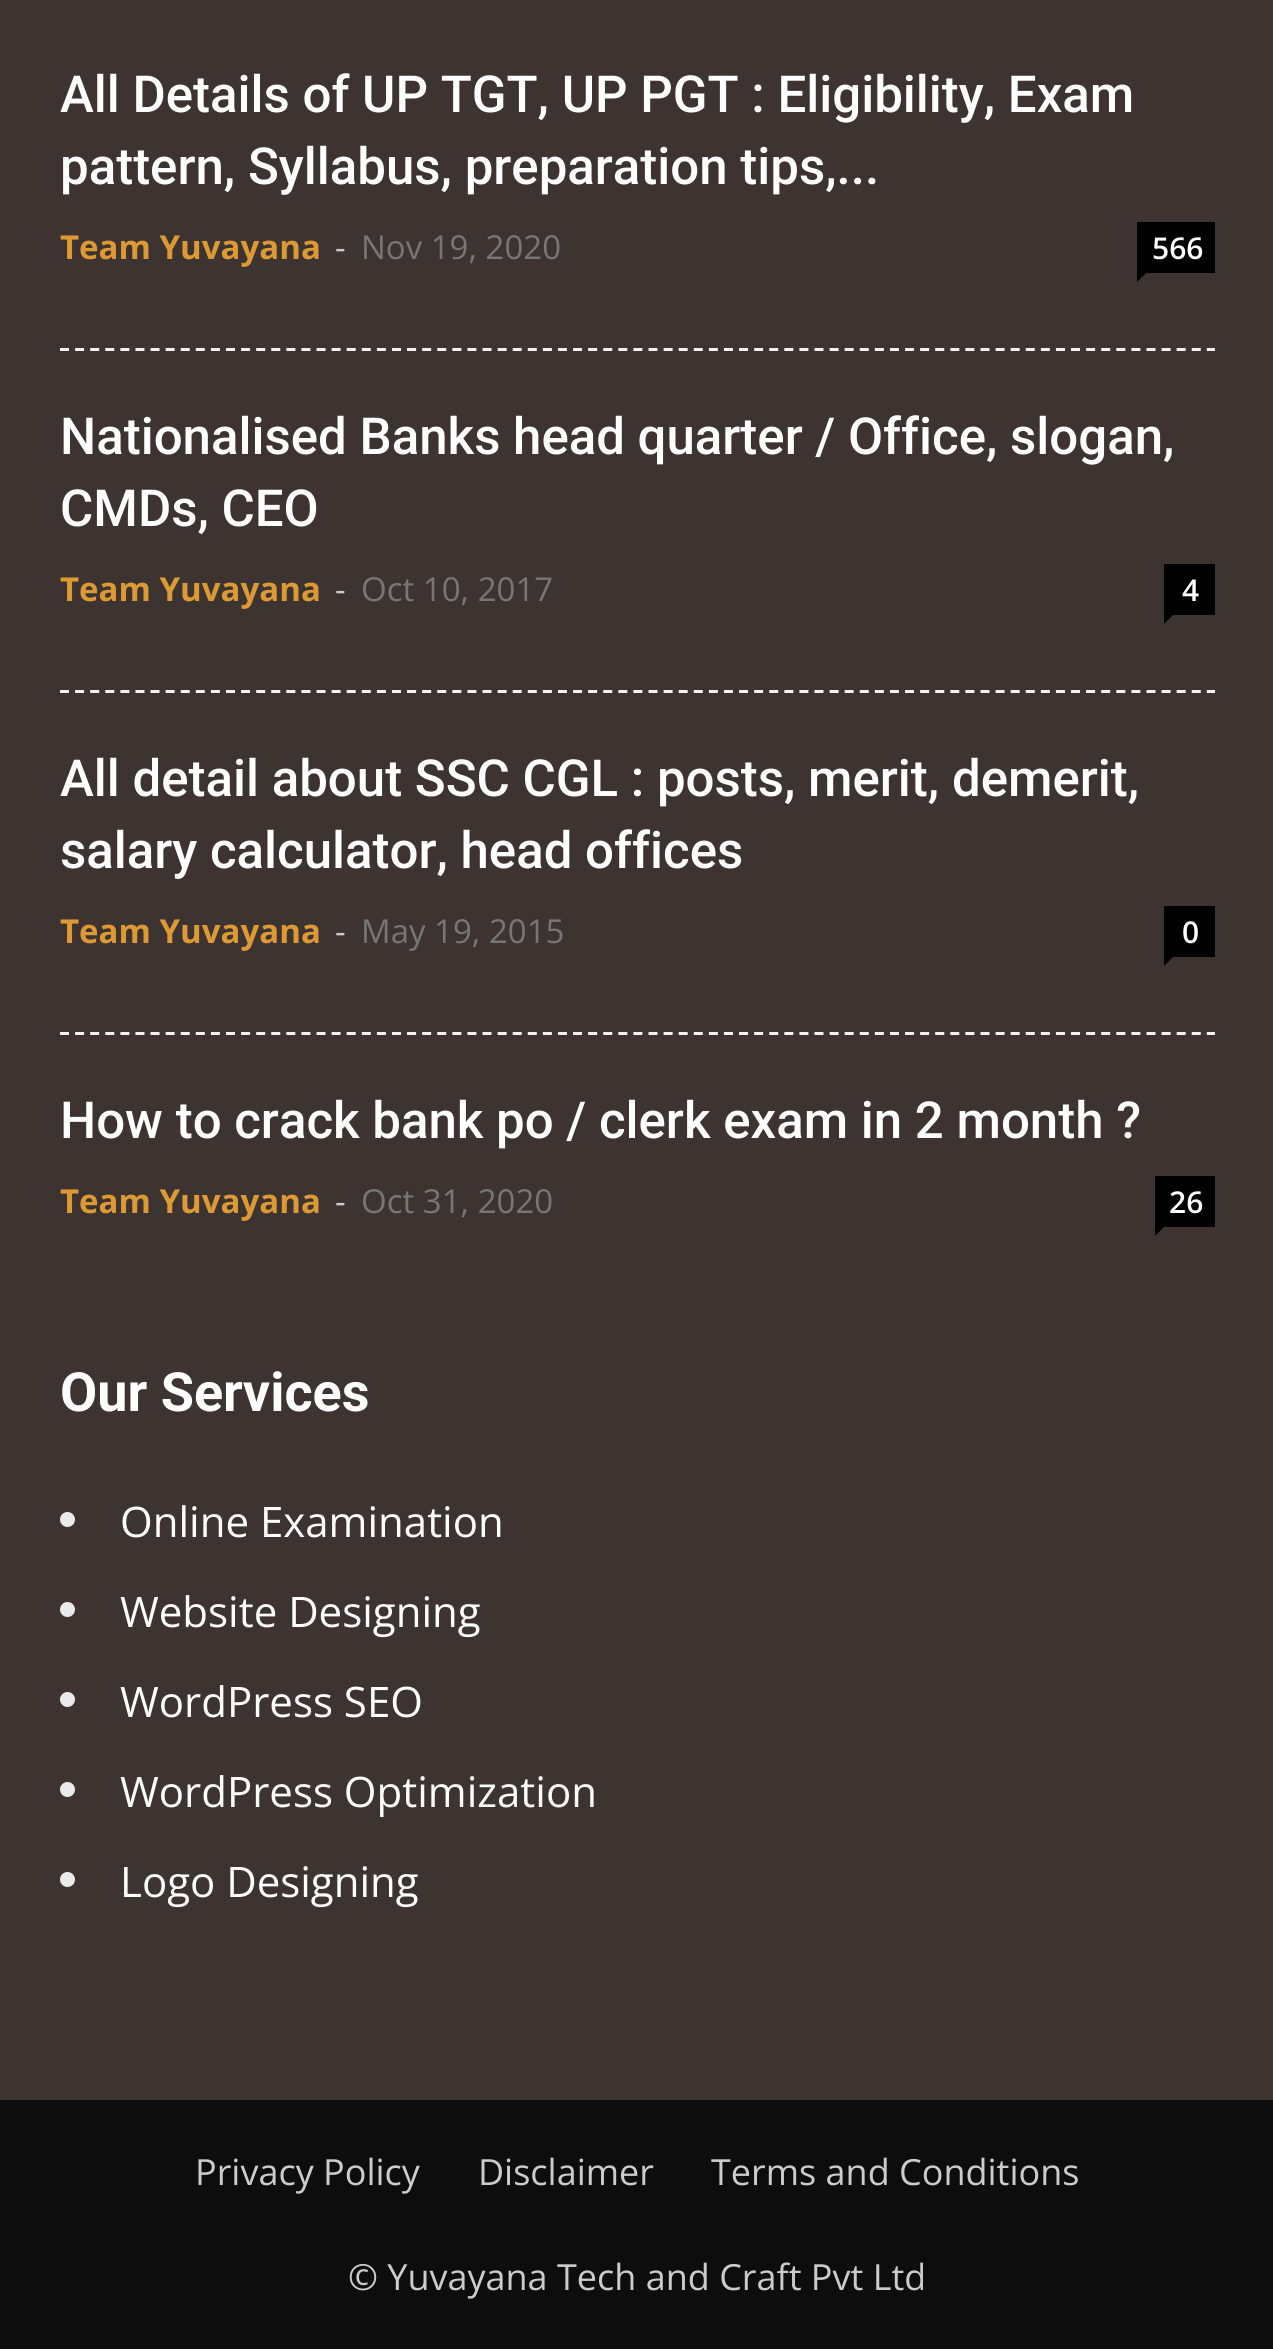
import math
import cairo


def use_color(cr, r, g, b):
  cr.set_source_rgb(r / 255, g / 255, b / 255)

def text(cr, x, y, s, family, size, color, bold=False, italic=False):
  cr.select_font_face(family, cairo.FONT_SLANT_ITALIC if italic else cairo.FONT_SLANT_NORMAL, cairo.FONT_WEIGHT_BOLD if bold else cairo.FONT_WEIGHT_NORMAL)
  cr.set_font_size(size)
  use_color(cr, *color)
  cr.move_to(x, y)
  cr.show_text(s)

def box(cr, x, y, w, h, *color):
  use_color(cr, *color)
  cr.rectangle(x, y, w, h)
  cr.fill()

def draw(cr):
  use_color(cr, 13, 13, 13)
  cr.paint()
  box(cr, 0, 0, 1273, 2100, 61, 52, 50)
  cr.new_path()
  cr.move_to(60, 349.5)
  cr.line_to(1215, 349.5)
  use_color(cr, 242, 242, 242)
  cr.set_line_width(3)
  cr.set_dash([9, 6.09])
  cr.stroke()
  box(cr, 1137, 222, 78, 51, 0, 0, 0)
  cr.new_path()
  cr.move_to(1137, 273)
  cr.line_to(1146, 273)
  cr.line_to(1137, 282)
  cr.close_path()
  cr.fill()
  cr.new_path()
  cr.move_to(60, 691.5)
  cr.line_to(1215, 691.5)
  use_color(cr, 242, 242, 242)
  cr.stroke()
  box(cr, 1164, 564, 51, 51, 0, 0, 0)
  cr.new_path()
  cr.move_to(1164, 615)
  cr.line_to(1173, 615)
  cr.line_to(1164, 624)
  cr.close_path()
  cr.fill()
  cr.new_path()
  cr.move_to(60, 1033.5)
  cr.line_to(1215, 1033.5)
  use_color(cr, 242, 242, 242)
  cr.stroke()
  box(cr, 1164, 906, 51, 51, 0, 0, 0)
  cr.new_path()
  cr.move_to(1164, 957)
  cr.line_to(1173, 957)
  cr.line_to(1164, 966)
  cr.close_path()
  cr.fill()
  box(cr, 1155, 1176, 60, 51, 0, 0, 0)
  cr.new_path()
  cr.move_to(1155, 1227)
  cr.line_to(1164, 1227)
  cr.line_to(1155, 1236)
  cr.close_path()
  cr.fill()
  use_color(cr, 234, 234, 234)
  cr.arc(67.5, 1519.5, 7.5, 0, 2 * math.pi)
  cr.fill()
  cr.arc(67.5, 1609.5, 7.5, 0, 2 * math.pi)
  cr.fill()
  cr.arc(67.5, 1699.5, 7.5, 0, 2 * math.pi)
  cr.fill()
  cr.arc(67.5, 1789.5, 7.5, 0, 2 * math.pi)
  cr.fill()
  cr.arc(67.5, 1879.5, 7.5, 0, 2 * math.pi)
  cr.fill()
  text(cr, 60, 112, "All Details of UP TGT, UP PGT : Eligibility, Exam", "Roboto Medium", 51, (255, 255, 255))
  text(cr, 60, 184, "pattern, Syllabus, preparation tips,...", "Roboto Medium", 51, (255, 255, 255))
  text(cr, 60, 259, "Team Yuvayana", "Open Sans", 33, (221, 153, 51), bold=True)
  text(cr, 335, 259, "-", "Open Sans", 33, (204, 204, 204))
  text(cr, 361, 259, "Nov 19, 2020", "Open Sans", 33, (118, 118, 118))
  text(cr, 1152, 259, "566", "Open Sans SemiBold", 30, (255, 255, 255))
  text(cr, 60, 454, "Nationalised Banks head quarter / Office, slogan,", "Roboto Medium", 51, (255, 255, 255))
  text(cr, 60, 526, "CMDs, CEO", "Roboto Medium", 51, (255, 255, 255))
  text(cr, 60, 601, "Team Yuvayana", "Open Sans", 33, (221, 153, 51), bold=True)
  text(cr, 335, 601, "-", "Open Sans", 33, (204, 204, 204))
  text(cr, 361, 601, "Oct 10, 2017", "Open Sans", 33, (118, 118, 118))
  text(cr, 1182, 601, "4", "Open Sans SemiBold", 30, (255, 255, 255))
  text(cr, 60, 796, "All detail about SSC CGL : posts, merit, demerit,", "Roboto Medium", 51, (255, 255, 255))
  text(cr, 60, 868, "salary calculator, head offices", "Roboto Medium", 51, (255, 255, 255))
  text(cr, 60, 943, "Team Yuvayana", "Open Sans", 33, (221, 153, 51), bold=True)
  text(cr, 335, 943, "-", "Open Sans", 33, (204, 204, 204))
  text(cr, 361, 943, "May 19, 2015", "Open Sans", 33, (118, 118, 118))
  text(cr, 1182, 943, "0", "Open Sans SemiBold", 30, (255, 255, 255))
  text(cr, 60, 1138, "How to crack bank po / clerk exam in 2 month ?", "Roboto Medium", 51, (255, 255, 255))
  text(cr, 60, 1213, "Team Yuvayana", "Open Sans", 33, (221, 153, 51), bold=True)
  text(cr, 335, 1213, "-", "Open Sans", 33, (204, 204, 204))
  text(cr, 361, 1213, "Oct 31, 2020", "Open Sans", 33, (118, 118, 118))
  text(cr, 1169, 1213, "26", "Open Sans SemiBold", 30, (255, 255, 255))
  text(cr, 60, 1411, "Our Services", "Roboto", 54, (255, 255, 255), bold=True)
  text(cr, 120, 1537, "Online Examination", "Open Sans", 42, (255, 255, 255))
  text(cr, 120, 1627, "Website Designing", "Open Sans", 42, (255, 255, 255))
  text(cr, 120, 1717, "WordPress SEO", "Open Sans", 42, (255, 255, 255))
  text(cr, 120, 1807, "WordPress Optimization", "Open Sans", 42, (255, 255, 255))
  text(cr, 120, 1897, "Logo Designing", "Open Sans", 42, (255, 255, 255))
  text(cr, 195, 2185, "Privacy Policy", "Open Sans", 36, (204, 204, 204))
  text(cr, 478, 2185, "Disclaimer", "Open Sans", 36, (204, 204, 204))
  text(cr, 711, 2185, "Terms and Conditions", "Open Sans", 36, (204, 204, 204))
  text(cr, 348, 2290, "© Yuvayana Tech and Craft Pvt Ltd", "Open Sans", 36, (204, 204, 204))


surface = cairo.ImageSurface(cairo.FORMAT_RGB24, 1273, 2349)
cr = cairo.Context(surface)
options = cairo.FontOptions()
options.set_hint_metrics(cairo.HINT_METRICS_OFF)
options.set_hint_style(cairo.HINT_STYLE_NONE)
cr.set_font_options(options)
cr.set_miter_limit(4)
draw(cr)
surface.write_to_png("out.png")
